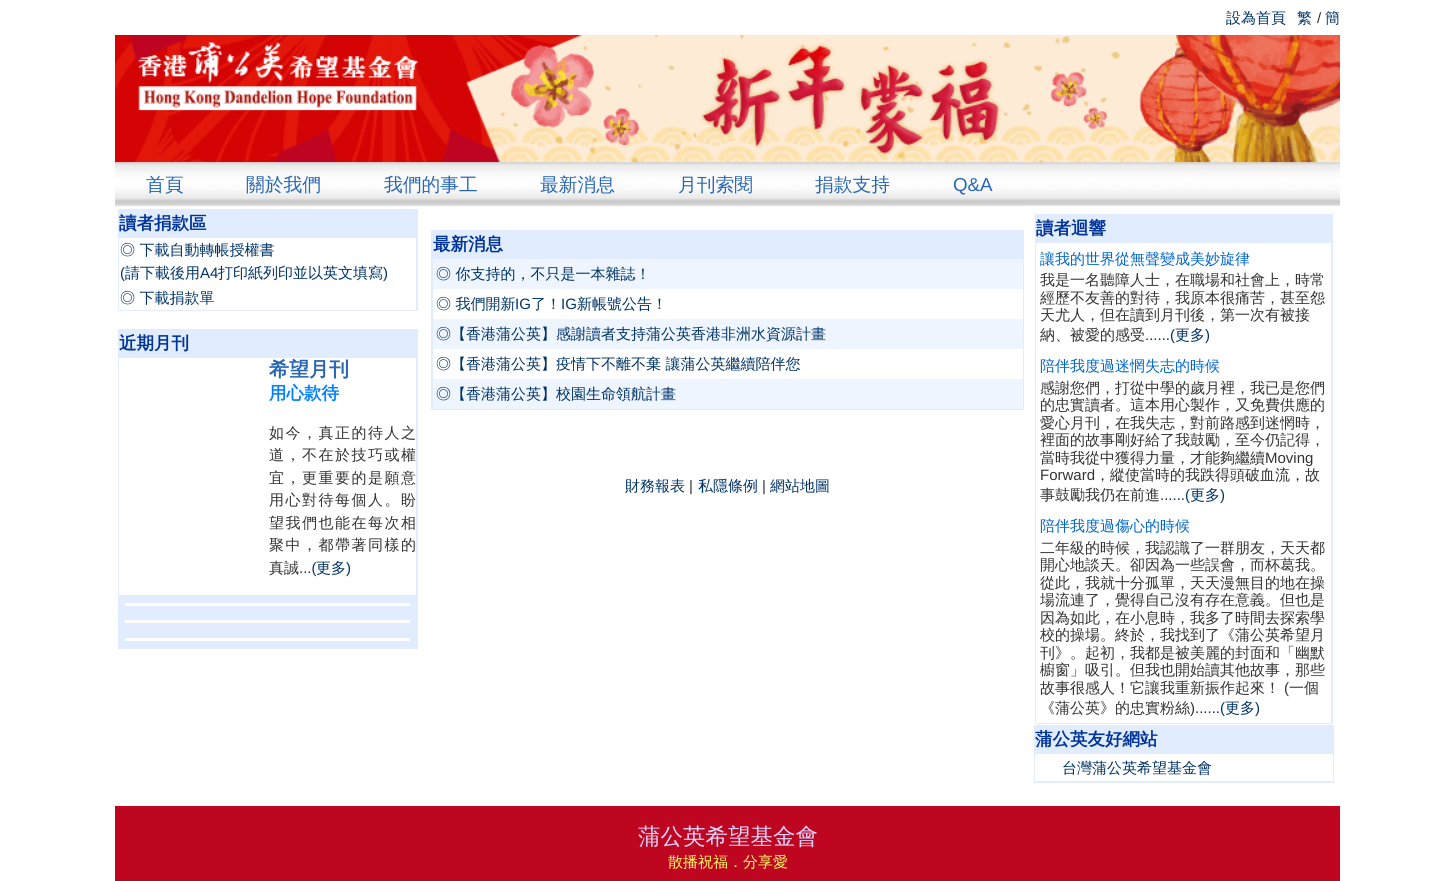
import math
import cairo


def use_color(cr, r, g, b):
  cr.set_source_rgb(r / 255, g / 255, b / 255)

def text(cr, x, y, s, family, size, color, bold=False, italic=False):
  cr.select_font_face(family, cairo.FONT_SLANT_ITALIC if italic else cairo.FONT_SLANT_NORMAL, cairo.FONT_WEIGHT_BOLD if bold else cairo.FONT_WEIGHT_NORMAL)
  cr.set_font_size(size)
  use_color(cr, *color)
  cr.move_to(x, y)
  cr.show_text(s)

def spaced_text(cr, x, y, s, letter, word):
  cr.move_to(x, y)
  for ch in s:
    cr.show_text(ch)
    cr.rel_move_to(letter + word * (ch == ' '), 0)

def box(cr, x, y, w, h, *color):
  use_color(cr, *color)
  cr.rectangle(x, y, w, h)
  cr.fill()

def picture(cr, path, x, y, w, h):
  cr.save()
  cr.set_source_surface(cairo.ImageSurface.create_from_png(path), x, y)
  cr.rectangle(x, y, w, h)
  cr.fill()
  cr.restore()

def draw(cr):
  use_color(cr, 255, 255, 255)
  cr.paint()
  picture(cr, "img_01.png", 115, 35, 1225, 128)
  picture(cr, "img_02.png", 115, 162, 1225, 1)
  picture(cr, "img_03.png", 115, 162, 1225, 44)
  picture(cr, "img_04.png", 115, 162, 100, 45)
  picture(cr, "img_05.png", 215, 162, 138, 45)
  picture(cr, "img_06.png", 353, 162, 155, 45)
  picture(cr, "img_07.png", 509, 162, 137, 45)
  picture(cr, "img_08.png", 647, 162, 136, 45)
  picture(cr, "img_09.png", 784, 162, 137, 45)
  picture(cr, "img_10.png", 922, 162, 101, 45)
  box(cr, 118, 209, 300, 102, 225, 237, 255)
  box(cr, 119, 238, 297, 72, 255, 255, 255)
  box(cr, 118, 329, 300, 320, 225, 237, 255)
  box(cr, 119, 358, 297, 237, 255, 255, 255)
  box(cr, 125, 603, 285, 3, 255, 255, 255)
  box(cr, 125, 620, 285, 3, 255, 255, 255)
  box(cr, 125, 638, 285, 3, 255, 255, 255)
  box(cr, 431, 230, 593, 180, 225, 237, 255)
  box(cr, 433, 289, 590, 90, 255, 255, 255)
  box(cr, 433, 259, 590, 30, 238, 245, 255)
  box(cr, 433, 319, 590, 30, 238, 245, 255)
  box(cr, 433, 379, 590, 30, 238, 245, 255)
  box(cr, 1035, 214, 298, 510, 225, 237, 255)
  box(cr, 1036, 243, 295, 480, 255, 255, 255)
  box(cr, 1034, 725, 300, 58, 225, 237, 255)
  box(cr, 1035, 754, 298, 27, 255, 255, 255)
  box(cr, 115, 806, 1225, 75, 190, 6, 33)
  text(cr, 1226, 23, "設為首頁", "WenQuanYi Zen Hei Medium", 15, (0, 51, 102))
  text(cr, 1297, 23, "繁", "WenQuanYi Zen Hei Medium", 15, (0, 51, 102))
  text(cr, 1317, 23, "/", "Liberation Sans", 15, (51, 51, 51))
  text(cr, 1325, 23, "簡", "WenQuanYi Zen Hei Medium", 15, (0, 51, 102))
  text(cr, 146, 191, "首頁", "WenQuanYi Zen Hei Medium", 18.75, (39, 102, 182))
  text(cr, 246, 191, "關於我們", "WenQuanYi Zen Hei Medium", 18.75, (39, 102, 182))
  text(cr, 384, 191, "我們的事工", "WenQuanYi Zen Hei Medium", 18.75, (39, 102, 182))
  text(cr, 540, 191, "最新消息", "WenQuanYi Zen Hei Medium", 18.75, (39, 102, 182))
  text(cr, 678, 191, "月刊索閱", "WenQuanYi Zen Hei Medium", 18.75, (39, 102, 182))
  text(cr, 815, 191, "捐款支持", "WenQuanYi Zen Hei Medium", 18.75, (39, 102, 182))
  text(cr, 953, 191, "Q&A", "Liberation Sans", 18.75, (39, 102, 182))
  text(cr, 119, 229, "讀者捐款區", "WenQuanYi Zen Hei", 17.5, (0, 51, 153), bold=True)
  text(cr, 120, 255, "◎ 下載自動轉帳授權書", "WenQuanYi Zen Hei Medium", 15, (0, 51, 102))
  text(cr, 120, 278, "(", "Liberation Sans", 15, (0, 51, 102))
  text(cr, 125, 278, "請下載後用", "WenQuanYi Zen Hei Medium", 15, (0, 51, 102))
  text(cr, 200, 278, "A4", "Liberation Sans", 15, (0, 51, 102))
  text(cr, 218, 278, "打印紙列印並以英文填寫", "WenQuanYi Zen Hei Medium", 15, (0, 51, 102))
  text(cr, 383, 278, ")", "Liberation Sans", 15, (0, 51, 102))
  text(cr, 120, 303, "◎ 下載捐款單", "WenQuanYi Zen Hei Medium", 15, (0, 51, 102))
  text(cr, 119, 349, "近期月刊", "WenQuanYi Zen Hei", 17.5, (0, 51, 153), bold=True)
  text(cr, 269, 376, "希望月刊", "WenQuanYi Zen Hei", 20, (39, 102, 182), bold=True)
  text(cr, 269, 399, "用心款待", "WenQuanYi Zen Hei", 17.5, (0, 128, 255), bold=True)
  cr.select_font_face("WenQuanYi Zen Hei Medium")
  cr.set_font_size(15)
  use_color(cr, 51, 51, 51)
  spaced_text(cr, 269, 438, "如今，真正的待人之", 1.5, 0)
  spaced_text(cr, 269, 460, "道，不在於技巧或權", 1.5, 0)
  spaced_text(cr, 269, 483, "宜，更重要的是願意", 1.5, 0)
  spaced_text(cr, 269, 505, "用心對待每個人。盼", 1.5, 0)
  spaced_text(cr, 269, 528, "望我們也能在每次相", 1.5, 0)
  spaced_text(cr, 269, 550, "聚中，都帶著同樣的", 1.5, 0)
  text(cr, 269, 573, "真誠", "WenQuanYi Zen Hei Medium", 15, (51, 51, 51))
  text(cr, 299, 573, "...(", "Liberation Sans", 15, (0, 51, 102))
  text(cr, 316, 573, "更多", "WenQuanYi Zen Hei Medium", 15, (0, 51, 102))
  text(cr, 346, 573, ")", "Liberation Sans", 15, (0, 51, 102))
  text(cr, 433, 250, "最新消息", "WenQuanYi Zen Hei", 17.5, (0, 51, 153), bold=True)
  text(cr, 436, 279, "◎ 你支持的，不只是一本雜誌！", "WenQuanYi Zen Hei Medium", 15, (0, 51, 102))
  text(cr, 436, 309, "◎ 我們開新", "WenQuanYi Zen Hei Medium", 15, (0, 51, 102))
  text(cr, 515, 309, "IG", "Liberation Sans", 15, (0, 51, 102))
  text(cr, 531, 309, "了！", "WenQuanYi Zen Hei Medium", 15, (0, 51, 102))
  text(cr, 561, 309, "IG", "Liberation Sans", 15, (0, 51, 102))
  text(cr, 577, 309, "新帳號公告！", "WenQuanYi Zen Hei Medium", 15, (0, 51, 102))
  text(cr, 436, 339, "◎【香港蒲公英】感謝讀者支持蒲公英香港非洲水資源計畫", "WenQuanYi Zen Hei Medium", 15, (0, 51, 102))
  text(cr, 436, 369, "◎【香港蒲公英】疫情下不離不棄 讓蒲公英繼續陪伴您", "WenQuanYi Zen Hei Medium", 15, (0, 51, 102))
  text(cr, 436, 399, "◎【香港蒲公英】校園生命領航計畫", "WenQuanYi Zen Hei Medium", 15, (0, 51, 102))
  text(cr, 625, 491, "財務報表", "WenQuanYi Zen Hei Medium", 15, (0, 51, 102))
  text(cr, 689, 491, "|", "Liberation Sans", 15, (51, 51, 51))
  text(cr, 698, 491, "私隱條例", "WenQuanYi Zen Hei Medium", 15, (0, 51, 102))
  text(cr, 762, 491, "|", "Liberation Sans", 15, (51, 51, 51))
  text(cr, 770, 491, "網站地圖", "WenQuanYi Zen Hei Medium", 15, (0, 51, 102))
  text(cr, 1036, 234, "讀者迴響", "WenQuanYi Zen Hei", 17.5, (0, 51, 153), bold=True)
  text(cr, 1040, 264, "讓我的世界從無聲變成美妙旋律", "WenQuanYi Zen Hei Medium", 15, (0, 102, 204))
  text(cr, 1040, 285, "我是一名聽障人士，在職場和社會上，時常", "WenQuanYi Zen Hei Medium", 15, (51, 51, 51))
  text(cr, 1040, 303, "經歷不友善的對待，我原本很痛苦，甚至怨", "WenQuanYi Zen Hei Medium", 15, (51, 51, 51))
  text(cr, 1040, 320, "天尤人，但在讀到月刊後，第一次有被接", "WenQuanYi Zen Hei Medium", 15, (51, 51, 51))
  text(cr, 1040, 340, "納、被愛的感受", "WenQuanYi Zen Hei Medium", 15, (51, 51, 51))
  text(cr, 1145, 340, "......(", "Liberation Sans", 15, (0, 51, 102))
  text(cr, 1175, 340, "更多", "WenQuanYi Zen Hei Medium", 15, (0, 51, 102))
  text(cr, 1205, 340, ")", "Liberation Sans", 15, (0, 51, 102))
  text(cr, 1040, 371, "陪伴我度過迷惘失志的時候", "WenQuanYi Zen Hei Medium", 15, (0, 102, 204))
  text(cr, 1040, 393, "感謝您們，打從中學的歲月裡，我已是您們", "WenQuanYi Zen Hei Medium", 15, (51, 51, 51))
  text(cr, 1040, 410, "的忠實讀者。這本用心製作，又免費供應的", "WenQuanYi Zen Hei Medium", 15, (51, 51, 51))
  text(cr, 1040, 428, "愛心月刊，在我失志，對前路感到迷惘時，", "WenQuanYi Zen Hei Medium", 15, (51, 51, 51))
  text(cr, 1040, 445, "裡面的故事剛好給了我鼓勵，至今仍記得，", "WenQuanYi Zen Hei Medium", 15, (51, 51, 51))
  text(cr, 1040, 463, "當時我從中獲得力量，才能夠繼續", "WenQuanYi Zen Hei Medium", 15, (51, 51, 51))
  text(cr, 1265, 463, "Moving", "Liberation Sans", 15, (51, 51, 51))
  text(cr, 1040, 480, "Forward", "Liberation Sans", 15, (51, 51, 51))
  text(cr, 1095, 480, "，縱使當時的我跌得頭破血流，故", "WenQuanYi Zen Hei Medium", 15, (51, 51, 51))
  text(cr, 1040, 500, "事鼓勵我仍在前進", "WenQuanYi Zen Hei Medium", 15, (51, 51, 51))
  text(cr, 1160, 500, "......(", "Liberation Sans", 15, (0, 51, 102))
  text(cr, 1190, 500, "更多", "WenQuanYi Zen Hei Medium", 15, (0, 51, 102))
  text(cr, 1220, 500, ")", "Liberation Sans", 15, (0, 51, 102))
  text(cr, 1040, 531, "陪伴我度過傷心的時候", "WenQuanYi Zen Hei Medium", 15, (0, 102, 204))
  text(cr, 1040, 553, "二年級的時候，我認識了一群朋友，天天都", "WenQuanYi Zen Hei Medium", 15, (51, 51, 51))
  text(cr, 1040, 570, "開心地談天。卻因為一些誤會，而杯葛我。", "WenQuanYi Zen Hei Medium", 15, (51, 51, 51))
  text(cr, 1040, 588, "從此，我就十分孤單，天天漫無目的地在操", "WenQuanYi Zen Hei Medium", 15, (51, 51, 51))
  text(cr, 1040, 605, "場流連了，覺得自己沒有存在意義。但也是", "WenQuanYi Zen Hei Medium", 15, (51, 51, 51))
  text(cr, 1040, 623, "因為如此，在小息時，我多了時間去探索學", "WenQuanYi Zen Hei Medium", 15, (51, 51, 51))
  text(cr, 1040, 640, "校的操場。終於，我找到了《蒲公英希望月", "WenQuanYi Zen Hei Medium", 15, (51, 51, 51))
  text(cr, 1040, 658, "刊》。起初，我都是被美麗的封面和「幽默", "WenQuanYi Zen Hei Medium", 15, (51, 51, 51))
  text(cr, 1040, 675, "櫥窗」吸引。但我也開始讀其他故事，那些", "WenQuanYi Zen Hei Medium", 15, (51, 51, 51))
  text(cr, 1040, 693, "故事很感人！它讓我重新振作起來！", "WenQuanYi Zen Hei Medium", 15, (51, 51, 51))
  text(cr, 1284, 693, "(", "Liberation Sans", 15, (51, 51, 51))
  text(cr, 1289, 693, "一個", "WenQuanYi Zen Hei Medium", 15, (51, 51, 51))
  text(cr, 1040, 713, "《蒲公英》的忠實粉絲", "WenQuanYi Zen Hei Medium", 15, (51, 51, 51))
  text(cr, 1190, 713, ")", "Liberation Sans", 15, (51, 51, 51))
  text(cr, 1195, 713, "......(", "Liberation Sans", 15, (0, 51, 102))
  text(cr, 1225, 713, "更多", "WenQuanYi Zen Hei Medium", 15, (0, 51, 102))
  text(cr, 1255, 713, ")", "Liberation Sans", 15, (0, 51, 102))
  text(cr, 1035, 745, "蒲公英友好網站", "WenQuanYi Zen Hei", 17.5, (0, 51, 153), bold=True)
  text(cr, 1062, 773, "台灣蒲公英希望基金會", "WenQuanYi Zen Hei Medium", 15, (0, 51, 102))
  text(cr, 638, 844, "蒲公英希望基金會", "WenQuanYi Zen Hei Medium", 22.5, (223, 213, 253))
  text(cr, 668, 867, "散播祝福．分享愛", "WenQuanYi Zen Hei Medium", 15, (255, 255, 102))


surface = cairo.ImageSurface(cairo.FORMAT_RGB24, 1455, 881)
cr = cairo.Context(surface)
options = cairo.FontOptions()
options.set_hint_metrics(cairo.HINT_METRICS_OFF)
options.set_hint_style(cairo.HINT_STYLE_NONE)
cr.set_font_options(options)
cr.set_miter_limit(4)
draw(cr)
surface.write_to_png("out.png")
